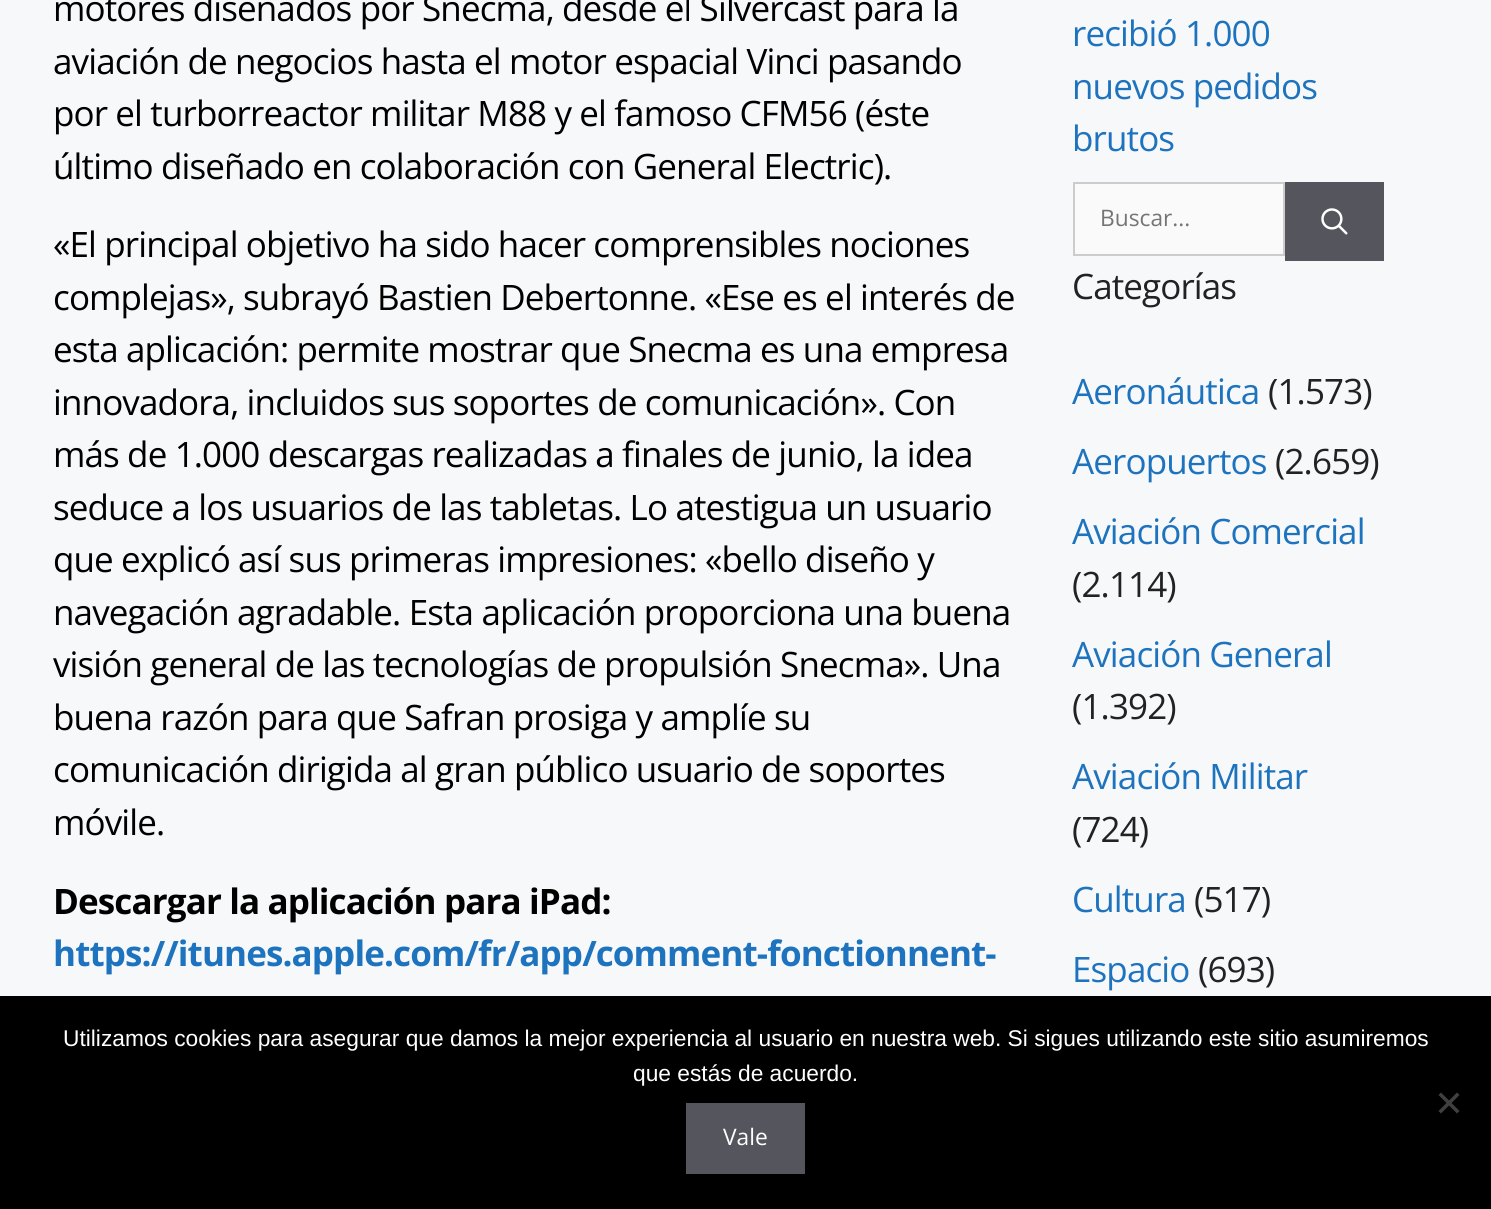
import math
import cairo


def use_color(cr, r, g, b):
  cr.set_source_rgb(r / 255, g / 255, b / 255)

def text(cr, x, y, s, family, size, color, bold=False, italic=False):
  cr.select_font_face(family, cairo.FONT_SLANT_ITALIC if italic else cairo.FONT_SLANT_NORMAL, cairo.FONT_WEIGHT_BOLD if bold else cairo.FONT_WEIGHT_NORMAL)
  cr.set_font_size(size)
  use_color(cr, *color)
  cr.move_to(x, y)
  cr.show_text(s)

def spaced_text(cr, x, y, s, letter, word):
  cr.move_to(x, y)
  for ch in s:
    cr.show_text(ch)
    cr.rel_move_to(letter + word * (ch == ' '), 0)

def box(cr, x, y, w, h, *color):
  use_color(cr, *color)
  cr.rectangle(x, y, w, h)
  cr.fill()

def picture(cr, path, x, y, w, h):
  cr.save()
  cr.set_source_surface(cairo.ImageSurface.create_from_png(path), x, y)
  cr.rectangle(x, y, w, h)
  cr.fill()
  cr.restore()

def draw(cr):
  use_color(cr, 247, 248, 249)
  cr.paint()
  use_color(cr, 250, 250, 250)
  cr.rectangle(1074, 183, 210, 72)
  cr.fill_preserve()
  use_color(cr, 204, 204, 204)
  cr.stroke()
  box(cr, 1285, 182, 99, 79, 85, 85, 94)
  picture(cr, "img_01.png", 1321, 208, 27, 27)
  box(cr, 0, 996, 1491, 213, 0, 0, 0)
  use_color(cr, 64, 64, 64)
  cr.new_path()
  cr.move_to(1457, 1092.5)
  cr.line_to(1459.5, 1095)
  cr.line_to(1441, 1113.5)
  cr.line_to(1438.5, 1111)
  cr.close_path()
  cr.fill()
  cr.new_path()
  cr.move_to(1438.5, 1095)
  cr.line_to(1441, 1092.5)
  cr.line_to(1459.5, 1111)
  cr.line_to(1457, 1113.5)
  cr.close_path()
  cr.fill()
  box(cr, 686, 1103, 119, 71, 85, 85, 94)
  cr.select_font_face("Open Sans")
  cr.set_font_size(35)
  use_color(cr, 0, 0, 0)
  spaced_text(cr, 53, 21, "motores diseñados por Snecma, desde el Silvercast para la", -0.88, 0)
  spaced_text(cr, 53, 74, "aviación de negocios hasta el motor espacial Vinci pasando", -0.88, 0)
  spaced_text(cr, 53, 126, "por el turborreactor militar M88 y el famoso CFM56 (éste", -0.88, 0)
  spaced_text(cr, 53, 179, "último diseñado en colaboración con General Electric).", -0.88, 0)
  spaced_text(cr, 53, 257, "«El principal objetivo ha sido hacer comprensibles nociones", -0.88, 0)
  spaced_text(cr, 53, 310, "complejas», subrayó Bastien Debertonne. «Ese es el interés de", -0.88, 0)
  spaced_text(cr, 53, 362, "esta aplicación: permite mostrar que Snecma es una empresa", -0.88, 0)
  spaced_text(cr, 53, 415, "innovadora, incluidos sus soportes de comunicación». Con", -0.88, 0)
  spaced_text(cr, 53, 467, "más de 1.000 descargas realizadas a finales de junio, la idea", -0.88, 0)
  spaced_text(cr, 53, 520, "seduce a los usuarios de las tabletas. Lo atestigua un usuario", -0.88, 0)
  spaced_text(cr, 53, 572, "que explicó así sus primeras impresiones: «bello diseño y", -0.88, 0)
  spaced_text(cr, 53, 625, "navegación agradable. Esta aplicación proporciona una buena", -0.88, 0)
  spaced_text(cr, 53, 677, "visión general de las tecnologías de propulsión Snecma». Una", -0.88, 0)
  spaced_text(cr, 53, 730, "buena razón para que Safran prosiga y amplíe su", -0.88, 0)
  spaced_text(cr, 53, 782, "comunicación dirigida al gran público usuario de soportes", -0.88, 0)
  spaced_text(cr, 53, 835, "móvile.", -0.88, 0)
  cr.select_font_face("Open Sans", cairo.FONT_SLANT_NORMAL, cairo.FONT_WEIGHT_BOLD)
  spaced_text(cr, 53, 914, "Descargar la aplicación para iPad:", -0.88, 0)
  use_color(cr, 30, 115, 190)
  spaced_text(cr, 53, 966, "https://itunes.apple.com/fr/app/comment-fonctionnent-", -0.88, 0)
  cr.select_font_face("Open Sans")
  spaced_text(cr, 1072, 46, "recibió 1.000", -0.88, 0)
  spaced_text(cr, 1072, 99, "nuevos pedidos", -0.88, 0)
  spaced_text(cr, 1072, 151, "brutos", -0.88, 0)
  text(cr, 1100, 226, "Buscar...", "Open Sans", 22.75, (117, 117, 117))
  cr.set_font_size(35)
  use_color(cr, 34, 34, 34)
  spaced_text(cr, 1072, 299, "Categorías", -0.88, 0)
  use_color(cr, 30, 115, 190)
  spaced_text(cr, 1072, 404, "Aeronáutica", -0.88, 0)
  use_color(cr, 34, 34, 34)
  spaced_text(cr, 1268, 404, "(1.573)", -0.88, 0)
  use_color(cr, 30, 115, 190)
  spaced_text(cr, 1072, 474, "Aeropuertos", -0.88, 0)
  use_color(cr, 34, 34, 34)
  spaced_text(cr, 1275, 474, "(2.659)", -0.88, 0)
  use_color(cr, 30, 115, 190)
  spaced_text(cr, 1072, 544, "Aviación Comercial", -0.88, 0)
  use_color(cr, 34, 34, 34)
  spaced_text(cr, 1072, 597, "(2.114)", -0.88, 0)
  use_color(cr, 30, 115, 190)
  spaced_text(cr, 1072, 667, "Aviación General", -0.88, 0)
  use_color(cr, 34, 34, 34)
  spaced_text(cr, 1072, 719, "(1.392)", -0.88, 0)
  use_color(cr, 30, 115, 190)
  spaced_text(cr, 1072, 789, "Aviación Militar", -0.88, 0)
  use_color(cr, 34, 34, 34)
  spaced_text(cr, 1072, 842, "(724)", -0.88, 0)
  use_color(cr, 30, 115, 190)
  spaced_text(cr, 1072, 912, "Cultura", -0.88, 0)
  use_color(cr, 34, 34, 34)
  spaced_text(cr, 1194, 912, "(517)", -0.88, 0)
  use_color(cr, 30, 115, 190)
  spaced_text(cr, 1072, 982, "Espacio", -0.88, 0)
  use_color(cr, 34, 34, 34)
  spaced_text(cr, 1198, 982, "(693)", -0.88, 0)
  text(cr, 63, 1046, "Utilizamos cookies para asegurar que damos la mejor experiencia al usuario en nuestra web. Si sigues utilizando este sitio asumiremos", "Liberation Sans", 22.75, (255, 255, 255))
  text(cr, 633, 1081, "que estás de acuerdo.", "Liberation Sans", 22.75, (255, 255, 255))
  text(cr, 723, 1145, "Vale", "Open Sans", 22.75, (255, 255, 255))


surface = cairo.ImageSurface(cairo.FORMAT_RGB24, 1491, 1209)
cr = cairo.Context(surface)
options = cairo.FontOptions()
options.set_hint_metrics(cairo.HINT_METRICS_OFF)
options.set_hint_style(cairo.HINT_STYLE_NONE)
cr.set_font_options(options)
cr.set_miter_limit(4)
draw(cr)
surface.write_to_png("out.png")
